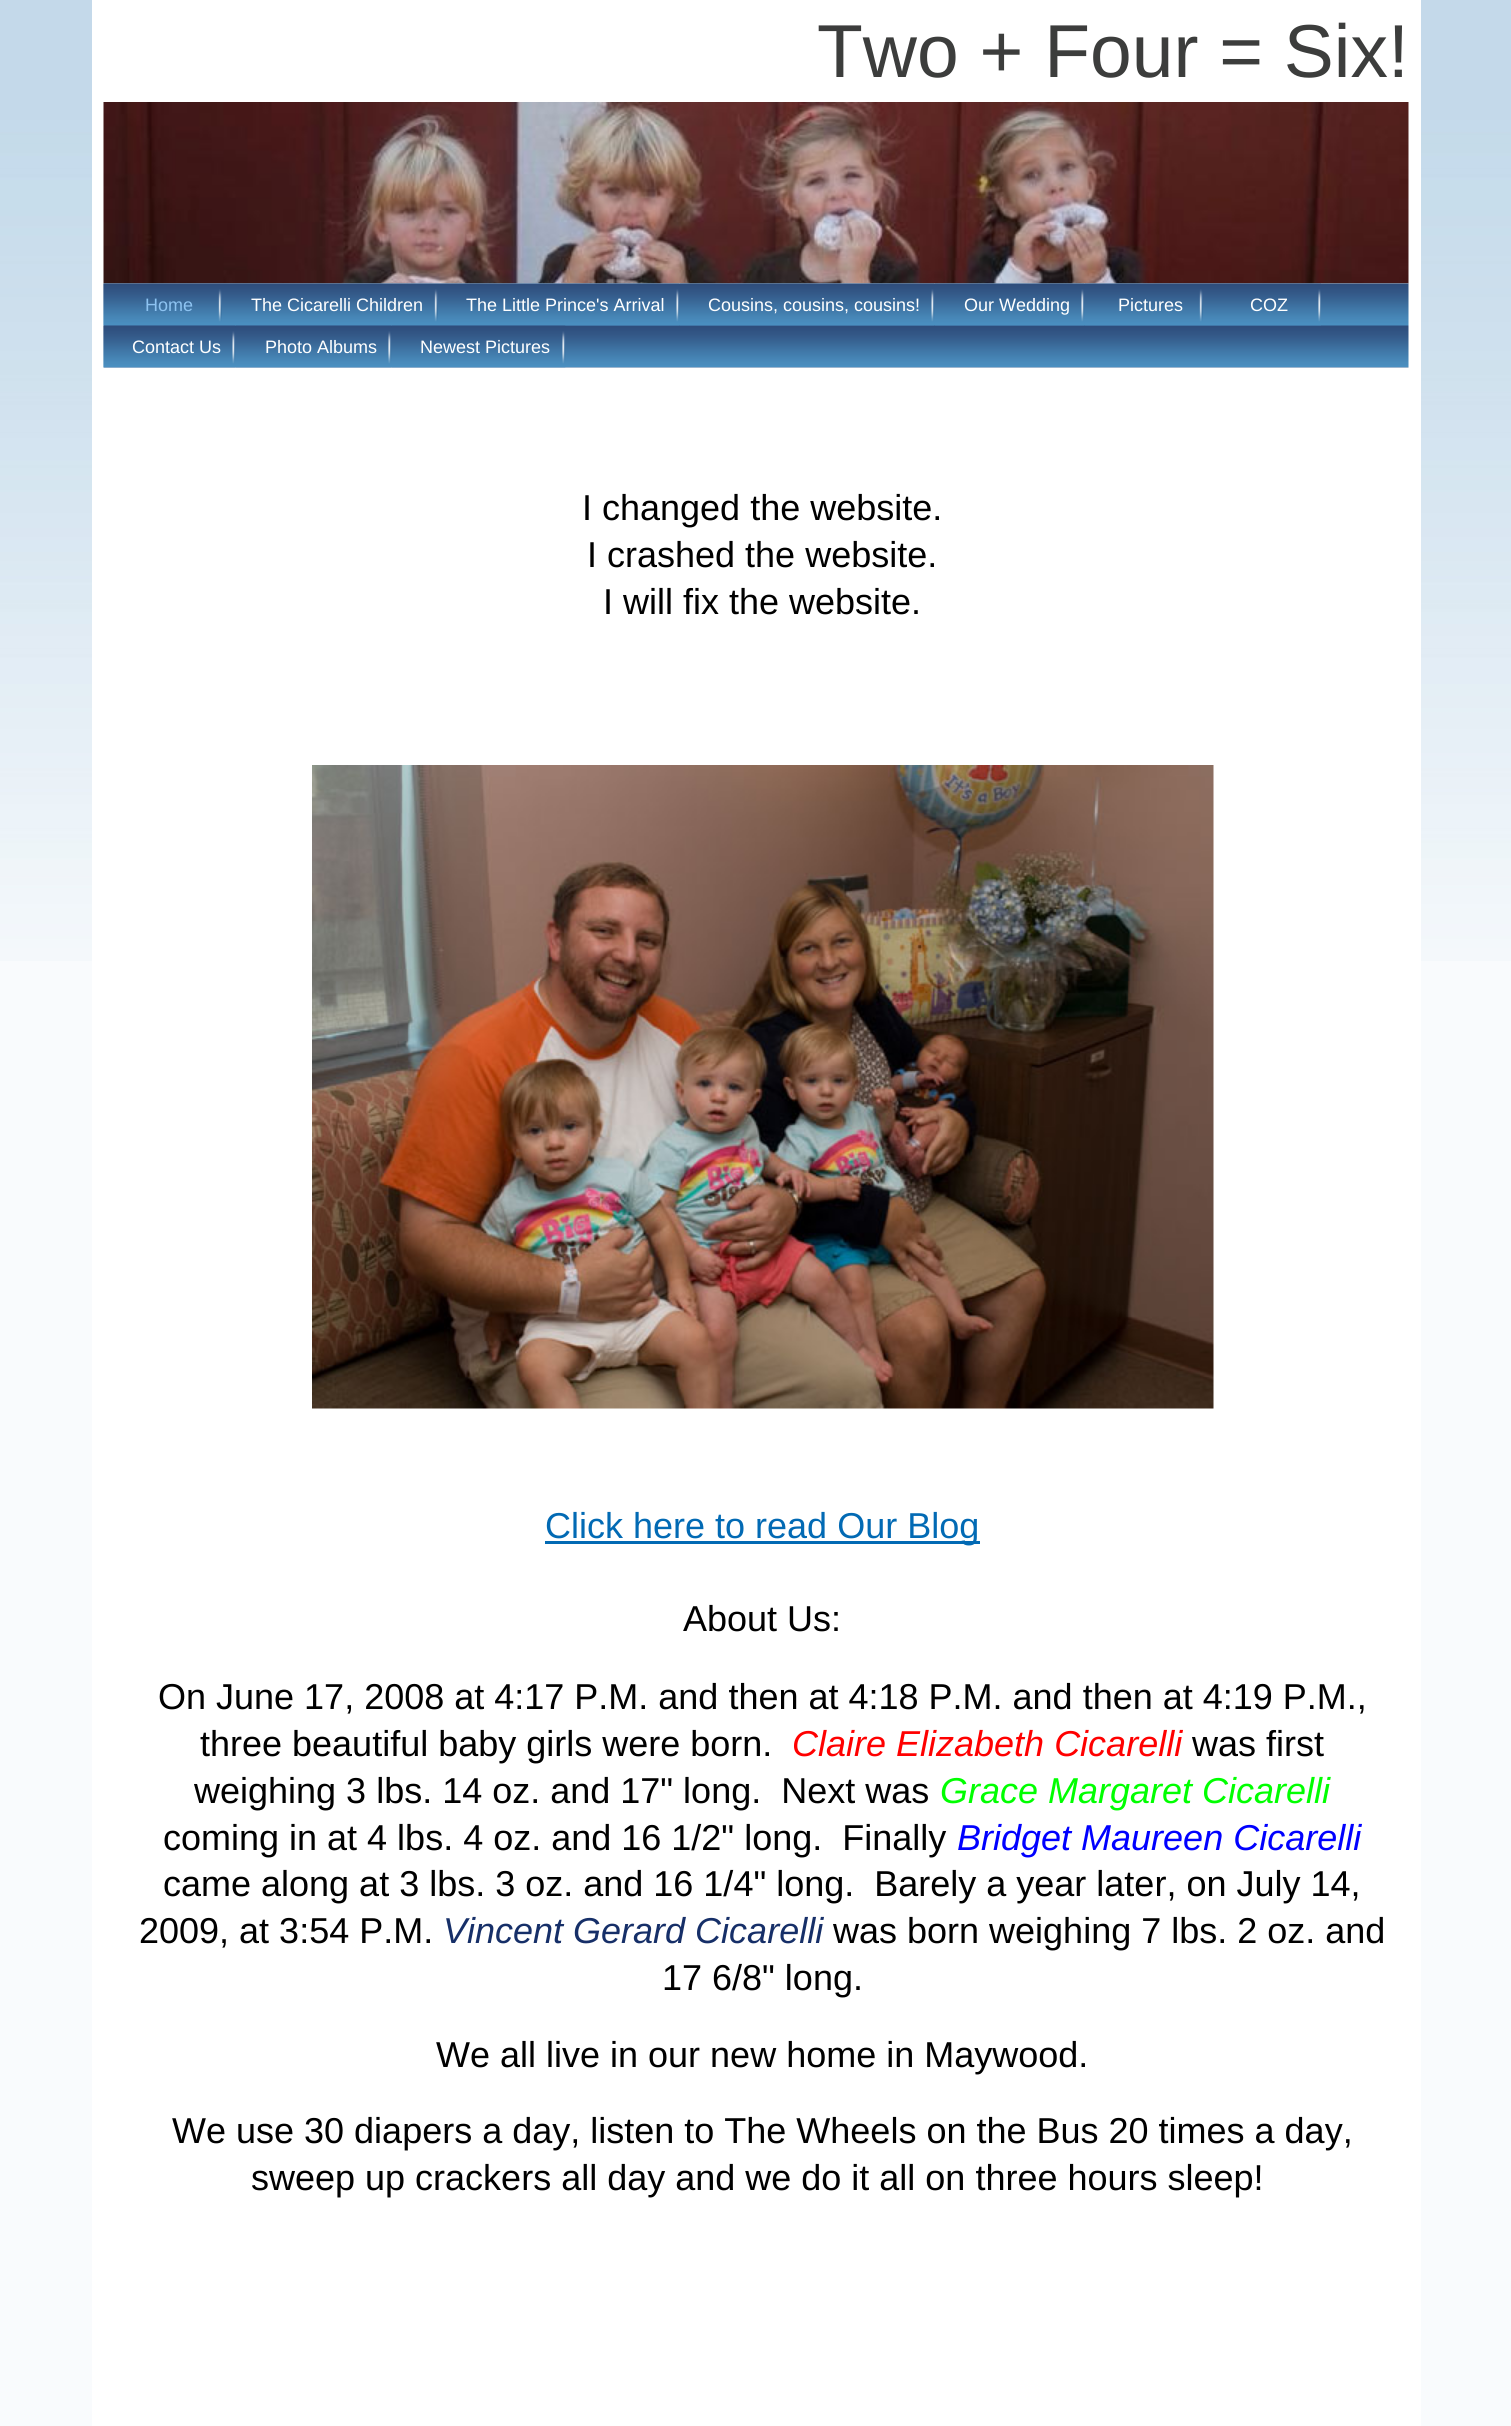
import math
import cairo


def use_color(cr, r, g, b):
  cr.set_source_rgb(r / 255, g / 255, b / 255)

def text(cr, x, y, s, family, size, color, bold=False, italic=False):
  cr.select_font_face(family, cairo.FONT_SLANT_ITALIC if italic else cairo.FONT_SLANT_NORMAL, cairo.FONT_WEIGHT_BOLD if bold else cairo.FONT_WEIGHT_NORMAL)
  cr.set_font_size(size)
  use_color(cr, *color)
  cr.move_to(x, y)
  cr.show_text(s)

def box(cr, x, y, w, h, *color):
  use_color(cr, *color)
  cr.rectangle(x, y, w, h)
  cr.fill()

def picture(cr, path, x, y, w, h):
  cr.save()
  cr.set_source_surface(cairo.ImageSurface.create_from_png(path), x, y)
  cr.rectangle(x, y, w, h)
  cr.fill()
  cr.restore()

def draw(cr):
  use_color(cr, 249, 251, 253)
  cr.paint()
  picture(cr, "img_01.png", 0, 0, 1511, 961)
  box(cr, 92, 0, 1329, 2426, 255, 255, 255)
  picture(cr, "img_02.png", 103, 102, 1306, 182)
  picture(cr, "img_03.png", 103, 283, 1306, 85)
  picture(cr, "img_04.png", 103, 283, 119, 43)
  picture(cr, "img_05.png", 222, 283, 216, 43)
  picture(cr, "img_06.png", 438, 283, 242, 43)
  picture(cr, "img_07.png", 679, 283, 256, 43)
  picture(cr, "img_08.png", 935, 283, 150, 43)
  picture(cr, "img_09.png", 1084, 283, 119, 43)
  picture(cr, "img_10.png", 1203, 283, 118, 43)
  picture(cr, "img_11.png", 103, 325, 133, 43)
  picture(cr, "img_12.png", 235, 325, 157, 43)
  picture(cr, "img_13.png", 391, 325, 175, 43)
  picture(cr, "img_14.png", 312, 765, 902, 644)
  box(cr, 545, 1541, 435, 3, 2, 106, 180)
  text(cr, 817, 77, "Two + Four = Six!", "Liberation Sans", 75, (60, 61, 60))
  text(cr, 145, 311, "Home", "Liberation Sans", 18, (141, 195, 241))
  text(cr, 251, 311, "The Cicarelli Children", "Liberation Sans", 18, (255, 255, 255))
  text(cr, 466, 311, "The Little Prince's Arrival", "Liberation Sans", 18, (255, 255, 255))
  text(cr, 708, 311, "Cousins, cousins, cousins!", "Liberation Sans", 18, (255, 255, 255))
  text(cr, 964, 311, "Our Wedding", "Liberation Sans", 18, (255, 255, 255))
  text(cr, 1118, 311, "Pictures", "Liberation Sans", 18, (255, 255, 255))
  text(cr, 1250, 311, "COZ", "Liberation Sans", 18, (255, 255, 255))
  text(cr, 132, 353, "Contact Us", "Liberation Sans", 18, (255, 255, 255))
  text(cr, 265, 353, "Photo Albums", "Liberation Sans", 18, (255, 255, 255))
  text(cr, 420, 353, "Newest Pictures", "Liberation Sans", 18, (255, 255, 255))
  text(cr, 582, 520, "I changed the website.", "Liberation Sans", 36, (0, 0, 0))
  text(cr, 587, 567, "I crashed the website.", "Liberation Sans", 36, (0, 0, 0))
  text(cr, 603, 614, "I will fix the website.", "Liberation Sans", 36, (0, 0, 0))
  text(cr, 545, 1538, "Click here to read Our Blog", "Liberation Sans", 36, (2, 106, 180))
  text(cr, 683, 1631, "About Us:", "Liberation Sans", 36, (0, 0, 0))
  text(cr, 158, 1709, "On June 17, 2008 at 4:17 P.M. and then at 4:18 P.M. and then at 4:19 P.M.,", "Liberation Sans", 36, (0, 0, 0))
  text(cr, 200, 1756, "three beautiful baby girls were born.", "Liberation Sans", 36, (0, 0, 0))
  text(cr, 792, 1756, "Claire Elizabeth Cicarelli", "Liberation Sans", 36, (255, 0, 0), italic=True)
  text(cr, 1192, 1756, "was first", "Liberation Sans", 36, (0, 0, 0))
  text(cr, 194, 1803, "weighing 3 lbs. 14 oz. and 17\" long.  Next was", "Liberation Sans", 36, (0, 0, 0))
  text(cr, 940, 1803, "Grace Margaret Cicarelli", "Liberation Sans", 36, (0, 255, 0), italic=True)
  text(cr, 163, 1850, "coming in at 4 lbs. 4 oz. and 16 1/2\" long.  Finally", "Liberation Sans", 36, (0, 0, 0))
  text(cr, 957, 1850, "Bridget Maureen Cicarelli", "Liberation Sans", 36, (0, 0, 255), italic=True)
  text(cr, 163, 1896, "came along at 3 lbs. 3 oz. and 16 1/4\" long.  Barely a year later, on July 14,", "Liberation Sans", 36, (0, 0, 0))
  text(cr, 139, 1943, "2009, at 3:54 P.M.", "Liberation Sans", 36, (0, 0, 0))
  text(cr, 443, 1943, "Vincent Gerard Cicarelli", "Liberation Sans", 36, (22, 47, 104), italic=True)
  text(cr, 833, 1943, "was born weighing 7 lbs. 2 oz. and", "Liberation Sans", 36, (0, 0, 0))
  text(cr, 662, 1990, "17 6/8\" long.", "Liberation Sans", 36, (0, 0, 0))
  text(cr, 436, 2067, "We all live in our new home in Maywood.", "Liberation Sans", 36, (0, 0, 0))
  text(cr, 172, 2143, "We use 30 diapers a day, listen to The Wheels on the Bus 20 times a day,", "Liberation Sans", 36, (0, 0, 0))
  text(cr, 251, 2190, "sweep up crackers all day and we do it all on three hours sleep!", "Liberation Sans", 36, (0, 0, 0))


surface = cairo.ImageSurface(cairo.FORMAT_RGB24, 1511, 2426)
cr = cairo.Context(surface)
options = cairo.FontOptions()
options.set_hint_metrics(cairo.HINT_METRICS_OFF)
options.set_hint_style(cairo.HINT_STYLE_NONE)
cr.set_font_options(options)
cr.set_miter_limit(4)
draw(cr)
surface.write_to_png("out.png")
